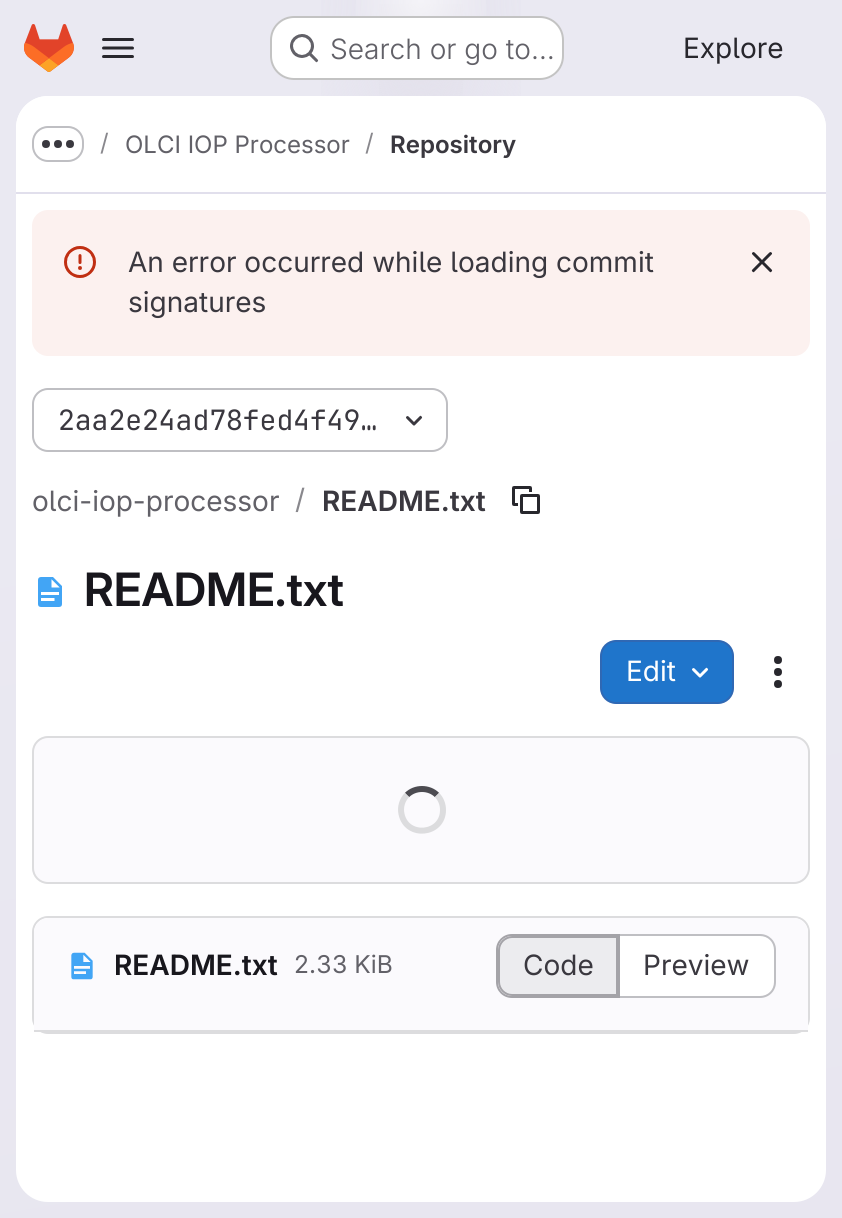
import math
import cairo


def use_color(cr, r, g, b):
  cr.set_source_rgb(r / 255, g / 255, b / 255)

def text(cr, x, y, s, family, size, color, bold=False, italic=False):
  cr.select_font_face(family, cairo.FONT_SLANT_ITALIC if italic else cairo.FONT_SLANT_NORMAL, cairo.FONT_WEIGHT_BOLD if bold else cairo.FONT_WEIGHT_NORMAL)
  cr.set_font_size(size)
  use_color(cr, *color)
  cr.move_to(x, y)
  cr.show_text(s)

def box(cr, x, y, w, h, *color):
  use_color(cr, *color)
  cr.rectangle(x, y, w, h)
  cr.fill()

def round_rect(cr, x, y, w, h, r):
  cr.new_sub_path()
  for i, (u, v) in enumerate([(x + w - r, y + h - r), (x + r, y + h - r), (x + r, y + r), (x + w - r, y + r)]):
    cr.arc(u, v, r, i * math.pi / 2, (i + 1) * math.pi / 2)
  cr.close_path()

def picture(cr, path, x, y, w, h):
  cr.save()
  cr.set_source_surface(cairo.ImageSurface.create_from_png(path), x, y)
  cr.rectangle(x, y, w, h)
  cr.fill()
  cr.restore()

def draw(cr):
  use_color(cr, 255, 255, 255)
  cr.paint()
  gradient = cairo.LinearGradient(538, 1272, 304, -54)
  gradient.add_color_stop_rgba(0, 0.91, 0.902, 0.941, 1)
  gradient.add_color_stop_rgba(0.7, 0.918, 0.914, 0.949, 1)
  cr.set_source(gradient)
  cr.rectangle(0, 0, 842, 1218)
  cr.fill()
  gradient = cairo.RadialGradient(0, 0, 0, 0, 0, 1)
  gradient.set_matrix(cairo.Matrix(1 / 421, 0, 0, 1 / 1218, -1 * 421 / 421, -1 * 0 / 1218))
  gradient.add_color_stop_rgba(0, 0.894, 0.886, 0.929, 1)
  gradient.add_color_stop_rgba(0.33, 0.894, 0.886, 0.929, 0)
  cr.set_source(gradient)
  cr.rectangle(321, 0, 200, 96)
  cr.fill()
  gradient = cairo.RadialGradient(0, 0, 0, 0, 0, 1)
  gradient.set_matrix(cairo.Matrix(1 / 421, 0, 0, 1 / 1218, -1 * 421 / 421, -1 * 0 / 1218))
  gradient.add_color_stop_rgba(0, 0.894, 0.886, 0.925, 1)
  gradient.add_color_stop_rgba(0.24, 0.894, 0.886, 0.925, 0)
  cr.set_source(gradient)
  cr.rectangle(379, 4, 84, 92)
  cr.fill()
  gradient = cairo.RadialGradient(421, 0, 0, 421, 0, 1289)
  gradient.add_color_stop_rgba(0, 1, 1, 1, 0.6)
  gradient.add_color_stop_rgba(0.06, 1, 1, 1, 0)
  cr.set_source(gradient)
  cr.rectangle(356, 0, 130, 16)
  cr.fill()
  picture(cr, "img_01.png", 24, 24, 50, 48)
  picture(cr, "img_02.png", 102, 38, 32, 20)
  use_color(cr, 255, 255, 255)
  round_rect(cr, 270, 16, 294, 64, 24)
  cr.fill()
  round_rect(cr, 271, 17, 292, 62, 23)
  cr.set_source_rgba(0.02, 0.02, 0.024, 0.24)
  cr.stroke()
  picture(cr, "img_03.png", 290, 34, 29, 29)
  use_color(cr, 255, 255, 255)
  round_rect(cr, 16, 96, 810, 1106, 32)
  cr.fill()
  cr.new_path()
  cr.move_to(48, 96)
  cr.line_to(794, 96)
  cr.curve_to(811.5, 96, 826, 110.5, 826, 128)
  cr.line_to(826, 194)
  cr.line_to(16, 194)
  cr.line_to(16, 128)
  cr.curve_to(16, 110.5, 30.5, 96, 48, 96)
  cr.close_path()
  cr.fill()
  box(cr, 16, 192, 810, 2, 225, 223, 236)
  round_rect(cr, 33, 127, 50, 34, 15)
  use_color(cr, 191, 191, 195)
  cr.stroke()
  picture(cr, "img_04.png", 42, 140, 32, 8)
  use_color(cr, 252, 241, 239)
  round_rect(cr, 32, 210, 778, 146, 16)
  cr.fill()
  picture(cr, "img_05.png", 64, 246, 32, 32)
  picture(cr, "img_06.png", 751, 252, 22, 21)
  round_rect(cr, 33, 389, 414, 62, 15)
  use_color(cr, 191, 191, 195)
  cr.stroke()
  picture(cr, "img_07.png", 406, 415, 17, 11)
  picture(cr, "img_08.png", 512, 486, 28, 28)
  picture(cr, "img_09.png", 38, 577, 24, 30)
  use_color(cr, 31, 117, 203)
  round_rect(cr, 601, 641, 132, 62, 15)
  cr.fill_preserve()
  use_color(cr, 47, 104, 180)
  cr.stroke()
  picture(cr, "img_10.png", 692, 667, 17, 11)
  picture(cr, "img_11.png", 774, 656, 8, 32)
  use_color(cr, 251, 250, 253)
  round_rect(cr, 33, 737, 776, 146, 15)
  cr.fill_preserve()
  use_color(cr, 220, 220, 222)
  cr.stroke()
  cr.new_path()
  cr.move_to(407, 795)
  cr.curve_to(415, 787, 429, 787, 437, 795)
  use_color(cr, 76, 75, 81)
  cr.set_line_width(6)
  cr.stroke()
  cr.new_path()
  cr.move_to(437, 795)
  cr.curve_to(441, 799, 443, 804.5, 443, 810)
  cr.curve_to(443, 835, 406.5, 838.5, 401.5, 814)
  cr.curve_to(400, 807.5, 402, 800, 407, 795)
  use_color(cr, 220, 220, 222)
  cr.stroke()
  round_rect(cr, 33, 917, 776, 116, 15)
  cr.set_line_width(2)
  cr.stroke()
  use_color(cr, 251, 250, 253)
  cr.new_path()
  cr.move_to(48, 918)
  cr.line_to(794, 918)
  cr.curve_to(801.5, 918, 808, 924.5, 808, 932)
  cr.line_to(808, 1032)
  cr.line_to(34, 1032)
  cr.line_to(34, 932)
  cr.curve_to(34, 924.5, 40.5, 918, 48, 918)
  cr.close_path()
  cr.fill()
  box(cr, 34, 1030, 774, 2, 220, 220, 222)
  picture(cr, "img_12.png", 71, 952, 22, 28)
  use_color(cr, 236, 236, 239)
  cr.new_path()
  cr.move_to(512, 937)
  cr.line_to(617, 937)
  cr.line_to(617, 995)
  cr.line_to(512, 995)
  cr.curve_to(505, 995, 499, 989, 499, 982)
  cr.line_to(499, 950)
  cr.curve_to(499, 943, 505, 937, 512, 937)
  cr.close_path()
  cr.fill_preserve()
  use_color(cr, 164, 163, 168)
  cr.stroke()
  cr.set_fill_rule(cairo.FILL_RULE_EVEN_ODD)
  cr.new_path()
  cr.move_to(512, 934)
  cr.line_to(618, 934)
  cr.line_to(618, 998)
  cr.line_to(512, 998)
  cr.curve_to(503, 998, 496, 991, 496, 982)
  cr.line_to(496, 950)
  cr.curve_to(496, 941, 503, 934, 512, 934)
  cr.close_path()
  cr.move_to(512, 936)
  cr.line_to(618, 936)
  cr.line_to(618, 996)
  cr.line_to(512, 996)
  cr.curve_to(504, 996, 498, 990, 498, 982)
  cr.line_to(498, 950)
  cr.curve_to(498, 942, 504, 936, 512, 936)
  cr.close_path()
  cr.fill()
  use_color(cr, 255, 255, 255)
  cr.new_path()
  cr.move_to(620, 936)
  cr.line_to(760, 936)
  cr.curve_to(767.5, 936, 774, 942.5, 774, 950)
  cr.line_to(774, 982)
  cr.curve_to(774, 989.5, 767.5, 996, 760, 996)
  cr.line_to(620, 996)
  cr.close_path()
  cr.fill()
  use_color(cr, 191, 191, 195)
  cr.new_path()
  cr.move_to(620, 934)
  cr.line_to(760, 934)
  cr.curve_to(769, 934, 776, 941, 776, 950)
  cr.line_to(776, 982)
  cr.curve_to(776, 991, 769, 998, 760, 998)
  cr.line_to(620, 998)
  cr.close_path()
  cr.move_to(620, 936)
  cr.line_to(760, 936)
  cr.curve_to(768, 936, 774, 942, 774, 950)
  cr.line_to(774, 982)
  cr.curve_to(774, 990, 768, 996, 760, 996)
  cr.line_to(620, 996)
  cr.close_path()
  cr.fill()
  box(cr, 618, 934, 2, 64, 164, 163, 168)
  text(cr, 330, 59, "Search or go to…", "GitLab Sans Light", 28, (98, 97, 104))
  text(cr, 683, 58, "Explore", "GitLab Sans", 28, (40, 39, 45))
  text(cr, 100, 151, "/", "GitLab Sans", 24, (137, 136, 141))
  text(cr, 125, 153, "OLCI IOP Processor", "GitLab Sans", 24, (98, 97, 104))
  text(cr, 365, 151, "/", "GitLab Sans", 24, (137, 136, 141))
  text(cr, 390, 153, "Repository", "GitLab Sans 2 SemiBold", 24, (58, 56, 63))
  text(cr, 128, 272, "An error occurred while loading commit", "GitLab Sans", 28, (58, 56, 63))
  text(cr, 128, 312, "signatures", "GitLab Sans", 28, (58, 56, 63))
  text(cr, 58, 430, "2aa2e24ad78fed4f49…", "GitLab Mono", 28, (58, 56, 63))
  text(cr, 32, 511, "olci-iop-processor", "GitLab Sans", 28, (98, 97, 104))
  text(cr, 295, 509, "/", "GitLab Sans", 28, (137, 136, 141))
  text(cr, 322, 511, "README.txt", "GitLab Sans 2 SemiBold", 28, (58, 56, 63))
  text(cr, 84, 606, "README.txt", "GitLab Sans SemiBold", 46, (24, 23, 29))
  text(cr, 626, 681, "Edit", "GitLab Sans", 28, (255, 255, 255))
  text(cr, 114, 975, "README.txt", "GitLab Sans 2 SemiBold", 28, (24, 23, 29))
  text(cr, 294, 973, "2.33 KiB", "GitLab Sans", 24.5, (98, 97, 104))
  text(cr, 523, 975, "Code", "GitLab Sans", 28, (58, 56, 63))
  text(cr, 643, 975, "Preview", "GitLab Sans", 28, (58, 56, 63))


surface = cairo.ImageSurface(cairo.FORMAT_RGB24, 842, 1218)
cr = cairo.Context(surface)
options = cairo.FontOptions()
options.set_hint_metrics(cairo.HINT_METRICS_OFF)
options.set_hint_style(cairo.HINT_STYLE_NONE)
cr.set_font_options(options)
cr.set_miter_limit(4)
draw(cr)
surface.write_to_png("out.png")
